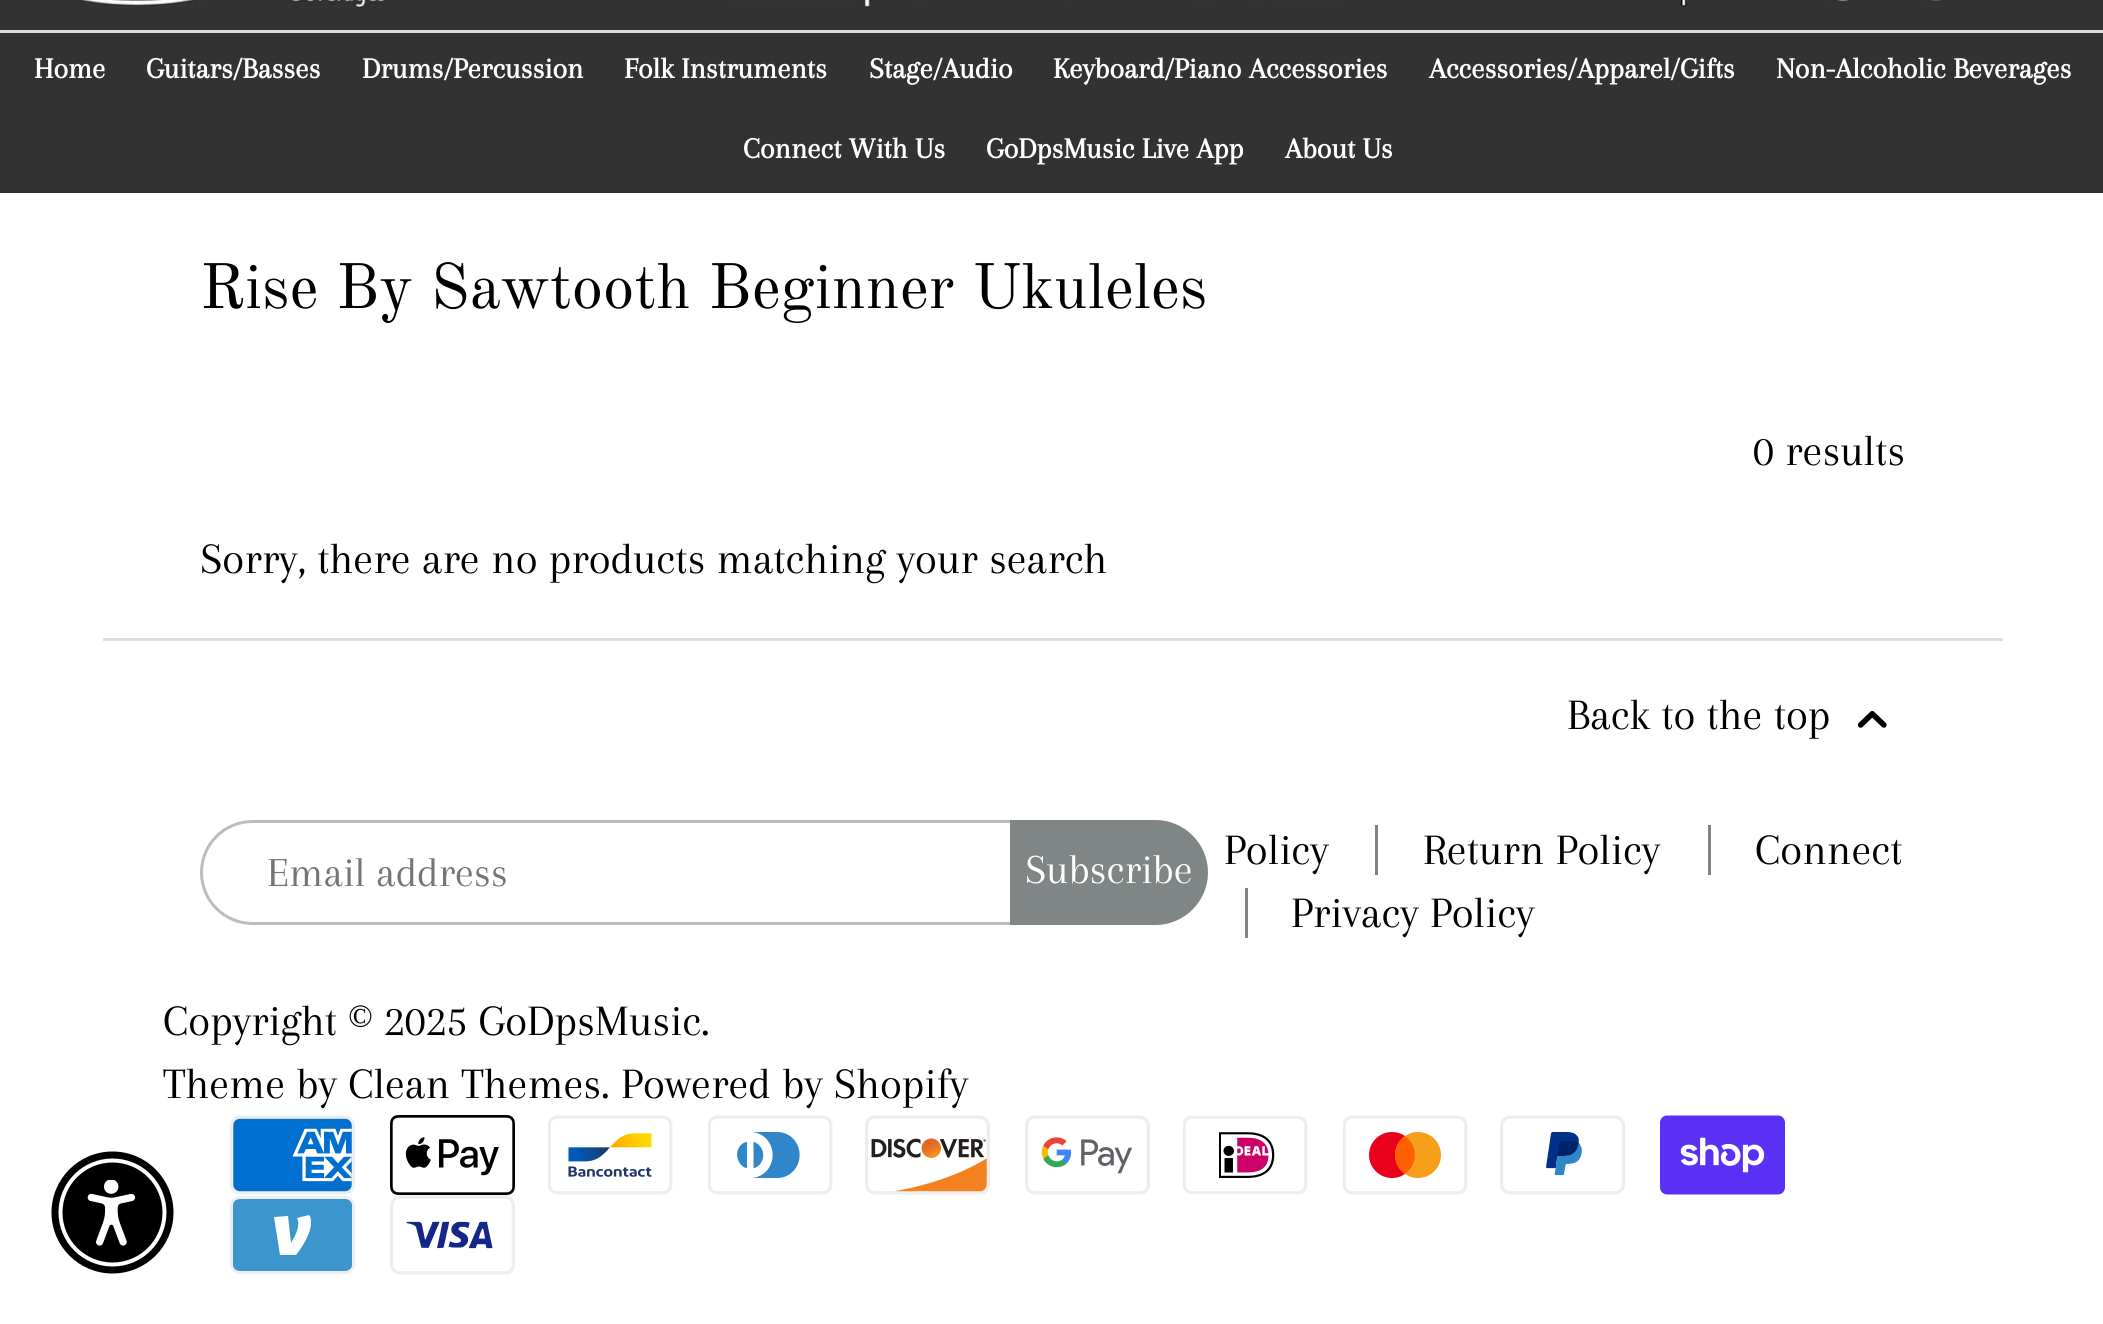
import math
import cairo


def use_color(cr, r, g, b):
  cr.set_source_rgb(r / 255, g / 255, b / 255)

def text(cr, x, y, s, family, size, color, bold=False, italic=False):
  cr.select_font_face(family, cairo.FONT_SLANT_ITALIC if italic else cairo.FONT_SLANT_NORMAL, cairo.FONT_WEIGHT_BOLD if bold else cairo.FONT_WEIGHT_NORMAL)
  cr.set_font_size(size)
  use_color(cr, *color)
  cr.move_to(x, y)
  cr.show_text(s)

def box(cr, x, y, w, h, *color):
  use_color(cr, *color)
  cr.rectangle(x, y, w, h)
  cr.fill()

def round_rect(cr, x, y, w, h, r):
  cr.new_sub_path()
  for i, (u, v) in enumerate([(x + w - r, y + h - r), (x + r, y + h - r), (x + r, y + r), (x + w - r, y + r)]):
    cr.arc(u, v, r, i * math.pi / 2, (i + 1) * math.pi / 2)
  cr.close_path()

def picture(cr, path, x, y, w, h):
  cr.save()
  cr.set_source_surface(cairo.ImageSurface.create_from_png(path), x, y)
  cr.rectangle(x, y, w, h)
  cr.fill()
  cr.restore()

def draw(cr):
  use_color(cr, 255, 255, 255)
  cr.paint()
  box(cr, 0, 0, 2103, 193, 50, 50, 50)
  picture(cr, "img_01.png", 77, 0, 1863, 9)
  box(cr, 0, 30, 2103, 3, 221, 221, 221)
  box(cr, 103, 638, 1900, 3, 221, 221, 221)
  picture(cr, "img_02.png", 1857, 711, 30, 17)
  round_rect(cr, 201.5, 821.5, 1002, 102, 51)
  use_color(cr, 188, 188, 188)
  cr.set_line_width(3)
  cr.stroke()
  use_color(cr, 128, 134, 134)
  cr.new_path()
  cr.move_to(1011.5, 821.5)
  cr.line_to(1155.5, 821.5)
  cr.curve_to(1183.5, 821.5, 1206.5, 844.5, 1206.5, 872.5)
  cr.curve_to(1206.5, 900.5, 1183.5, 923.5, 1155.5, 923.5)
  cr.line_to(1011.5, 923.5)
  cr.close_path()
  cr.fill_preserve()
  cr.stroke()
  box(cr, 1375, 825, 3, 50, 130, 130, 130)
  box(cr, 1708, 825, 3, 50, 130, 130, 130)
  box(cr, 1245, 888, 3, 50, 130, 130, 130)
  picture(cr, "img_03.png", 230, 1115, 125, 80)
  picture(cr, "img_04.png", 390, 1115, 125, 80)
  picture(cr, "img_05.png", 548, 1115, 125, 80)
  picture(cr, "img_06.png", 708, 1115, 125, 80)
  picture(cr, "img_07.png", 865, 1115, 125, 80)
  picture(cr, "img_08.png", 1025, 1115, 125, 80)
  picture(cr, "img_09.png", 1183, 1116, 125, 78)
  picture(cr, "img_10.png", 1343, 1115, 125, 80)
  picture(cr, "img_11.png", 1500, 1115, 125, 80)
  picture(cr, "img_12.png", 1660, 1115, 125, 80)
  use_color(cr, 237, 237, 237)
  round_rect(cr, 230, 1196, 125, 78, 10)
  cr.fill()
  picture(cr, "img_13.png", 390, 1195, 125, 80)
  use_color(cr, 61, 149, 206)
  cr.set_fill_rule(cairo.FILL_RULE_EVEN_ODD)
  cr.new_path()
  cr.move_to(345, 1199)
  cr.curve_to(349, 1199, 352, 1202, 352, 1205)
  cr.line_to(352, 1265)
  cr.curve_to(352, 1268, 349, 1271, 345, 1271)
  cr.line_to(240, 1271)
  cr.curve_to(236, 1271, 233, 1268, 233, 1265)
  cr.line_to(233, 1205)
  cr.curve_to(233, 1202, 236, 1199, 240, 1199)
  cr.line_to(345, 1199)
  cr.fill()
  use_color(cr, 255, 255, 255)
  cr.set_fill_rule(cairo.FILL_RULE_WINDING)
  cr.new_path()
  cr.move_to(311, 1223)
  cr.curve_to(311, 1233, 303, 1246, 296, 1255)
  cr.line_to(280, 1255)
  cr.line_to(274, 1217)
  cr.line_to(288, 1216)
  cr.line_to(291, 1243)
  cr.curve_to(295, 1236, 301, 1226, 297, 1218)
  cr.line_to(309, 1215)
  cr.curve_to(311, 1217, 311, 1220, 311, 1223)
  cr.close_path()
  cr.fill()
  use_color(cr, 0, 0, 0)
  cr.arc(112.5, 1212.5, 61, 0, 2 * math.pi)
  cr.fill()
  use_color(cr, 255, 255, 255)
  cr.arc(112.5, 1212.5, 54, 0, 2 * math.pi)
  cr.fill()
  use_color(cr, 0, 0, 0)
  cr.arc(112.5, 1212.5, 50, 0, 2 * math.pi)
  cr.fill()
  picture(cr, "img_14.png", 87, 1180, 49, 66)
  text(cr, 34, 78, "Home", "Arapey", 30, (255, 255, 255), bold=True)
  text(cr, 146, 78, "Guitars/Basses", "Arapey", 30, (255, 255, 255), bold=True)
  text(cr, 362, 78, "Drums/Percussion", "Arapey", 30, (255, 255, 255), bold=True)
  text(cr, 624, 78, "Folk Instruments", "Arapey", 30, (255, 255, 255), bold=True)
  text(cr, 869, 78, "Stage/Audio", "Arapey", 30, (255, 255, 255), bold=True)
  text(cr, 1053, 78, "Keyboard/Piano Accessories", "Arapey", 30, (255, 255, 255), bold=True)
  text(cr, 1429, 78, "Accessories/Apparel/Gifts", "Arapey", 30, (255, 255, 255), bold=True)
  text(cr, 1776, 78, "Non-Alcoholic Beverages", "Arapey", 30, (255, 255, 255), bold=True)
  text(cr, 743, 158, "Connect With Us", "Arapey", 30, (255, 255, 255), bold=True)
  text(cr, 986, 158, "GoDpsMusic Live App", "Arapey", 30, (255, 255, 255), bold=True)
  text(cr, 1285, 158, "About Us", "Arapey", 30, (255, 255, 255), bold=True)
  text(cr, 200, 308, "Rise By Sawtooth Beginner Ukuleles", "Old Standard TT", 63, (0, 0, 0))
  text(cr, 1753, 465, "0 results", "Arapey", 45, (0, 0, 0))
  text(cr, 200, 573, "Sorry, there are no products matching your search", "Arapey", 45, (0, 0, 0))
  text(cr, 1567, 729, "Back to the top", "Arapey", 45, (0, 0, 0))
  text(cr, 267, 886, "Email address", "Arapey", 42.75, (117, 117, 117))
  text(cr, 1025, 883, "Subscribe", "Arapey", 42.75, (255, 255, 255))
  text(cr, 1224, 864, "Policy", "Arapey", 45, (0, 0, 0))
  text(cr, 1423, 864, "Return Policy", "Arapey", 45, (0, 0, 0))
  text(cr, 1755, 864, "Connect", "Arapey", 45, (0, 0, 0))
  text(cr, 1291, 927, "Privacy Policy", "Arapey", 45, (0, 0, 0))
  text(cr, 163, 1035, "Copyright © 2025 GoDpsMusic.", "Arapey", 45, (0, 0, 0))
  text(cr, 163, 1098, "Theme by Clean Themes. Powered by Shopify", "Arapey", 45, (0, 0, 0))


surface = cairo.ImageSurface(cairo.FORMAT_RGB24, 2103, 1324)
cr = cairo.Context(surface)
options = cairo.FontOptions()
options.set_hint_metrics(cairo.HINT_METRICS_OFF)
options.set_hint_style(cairo.HINT_STYLE_NONE)
cr.set_font_options(options)
cr.set_miter_limit(4)
draw(cr)
surface.write_to_png("out.png")
